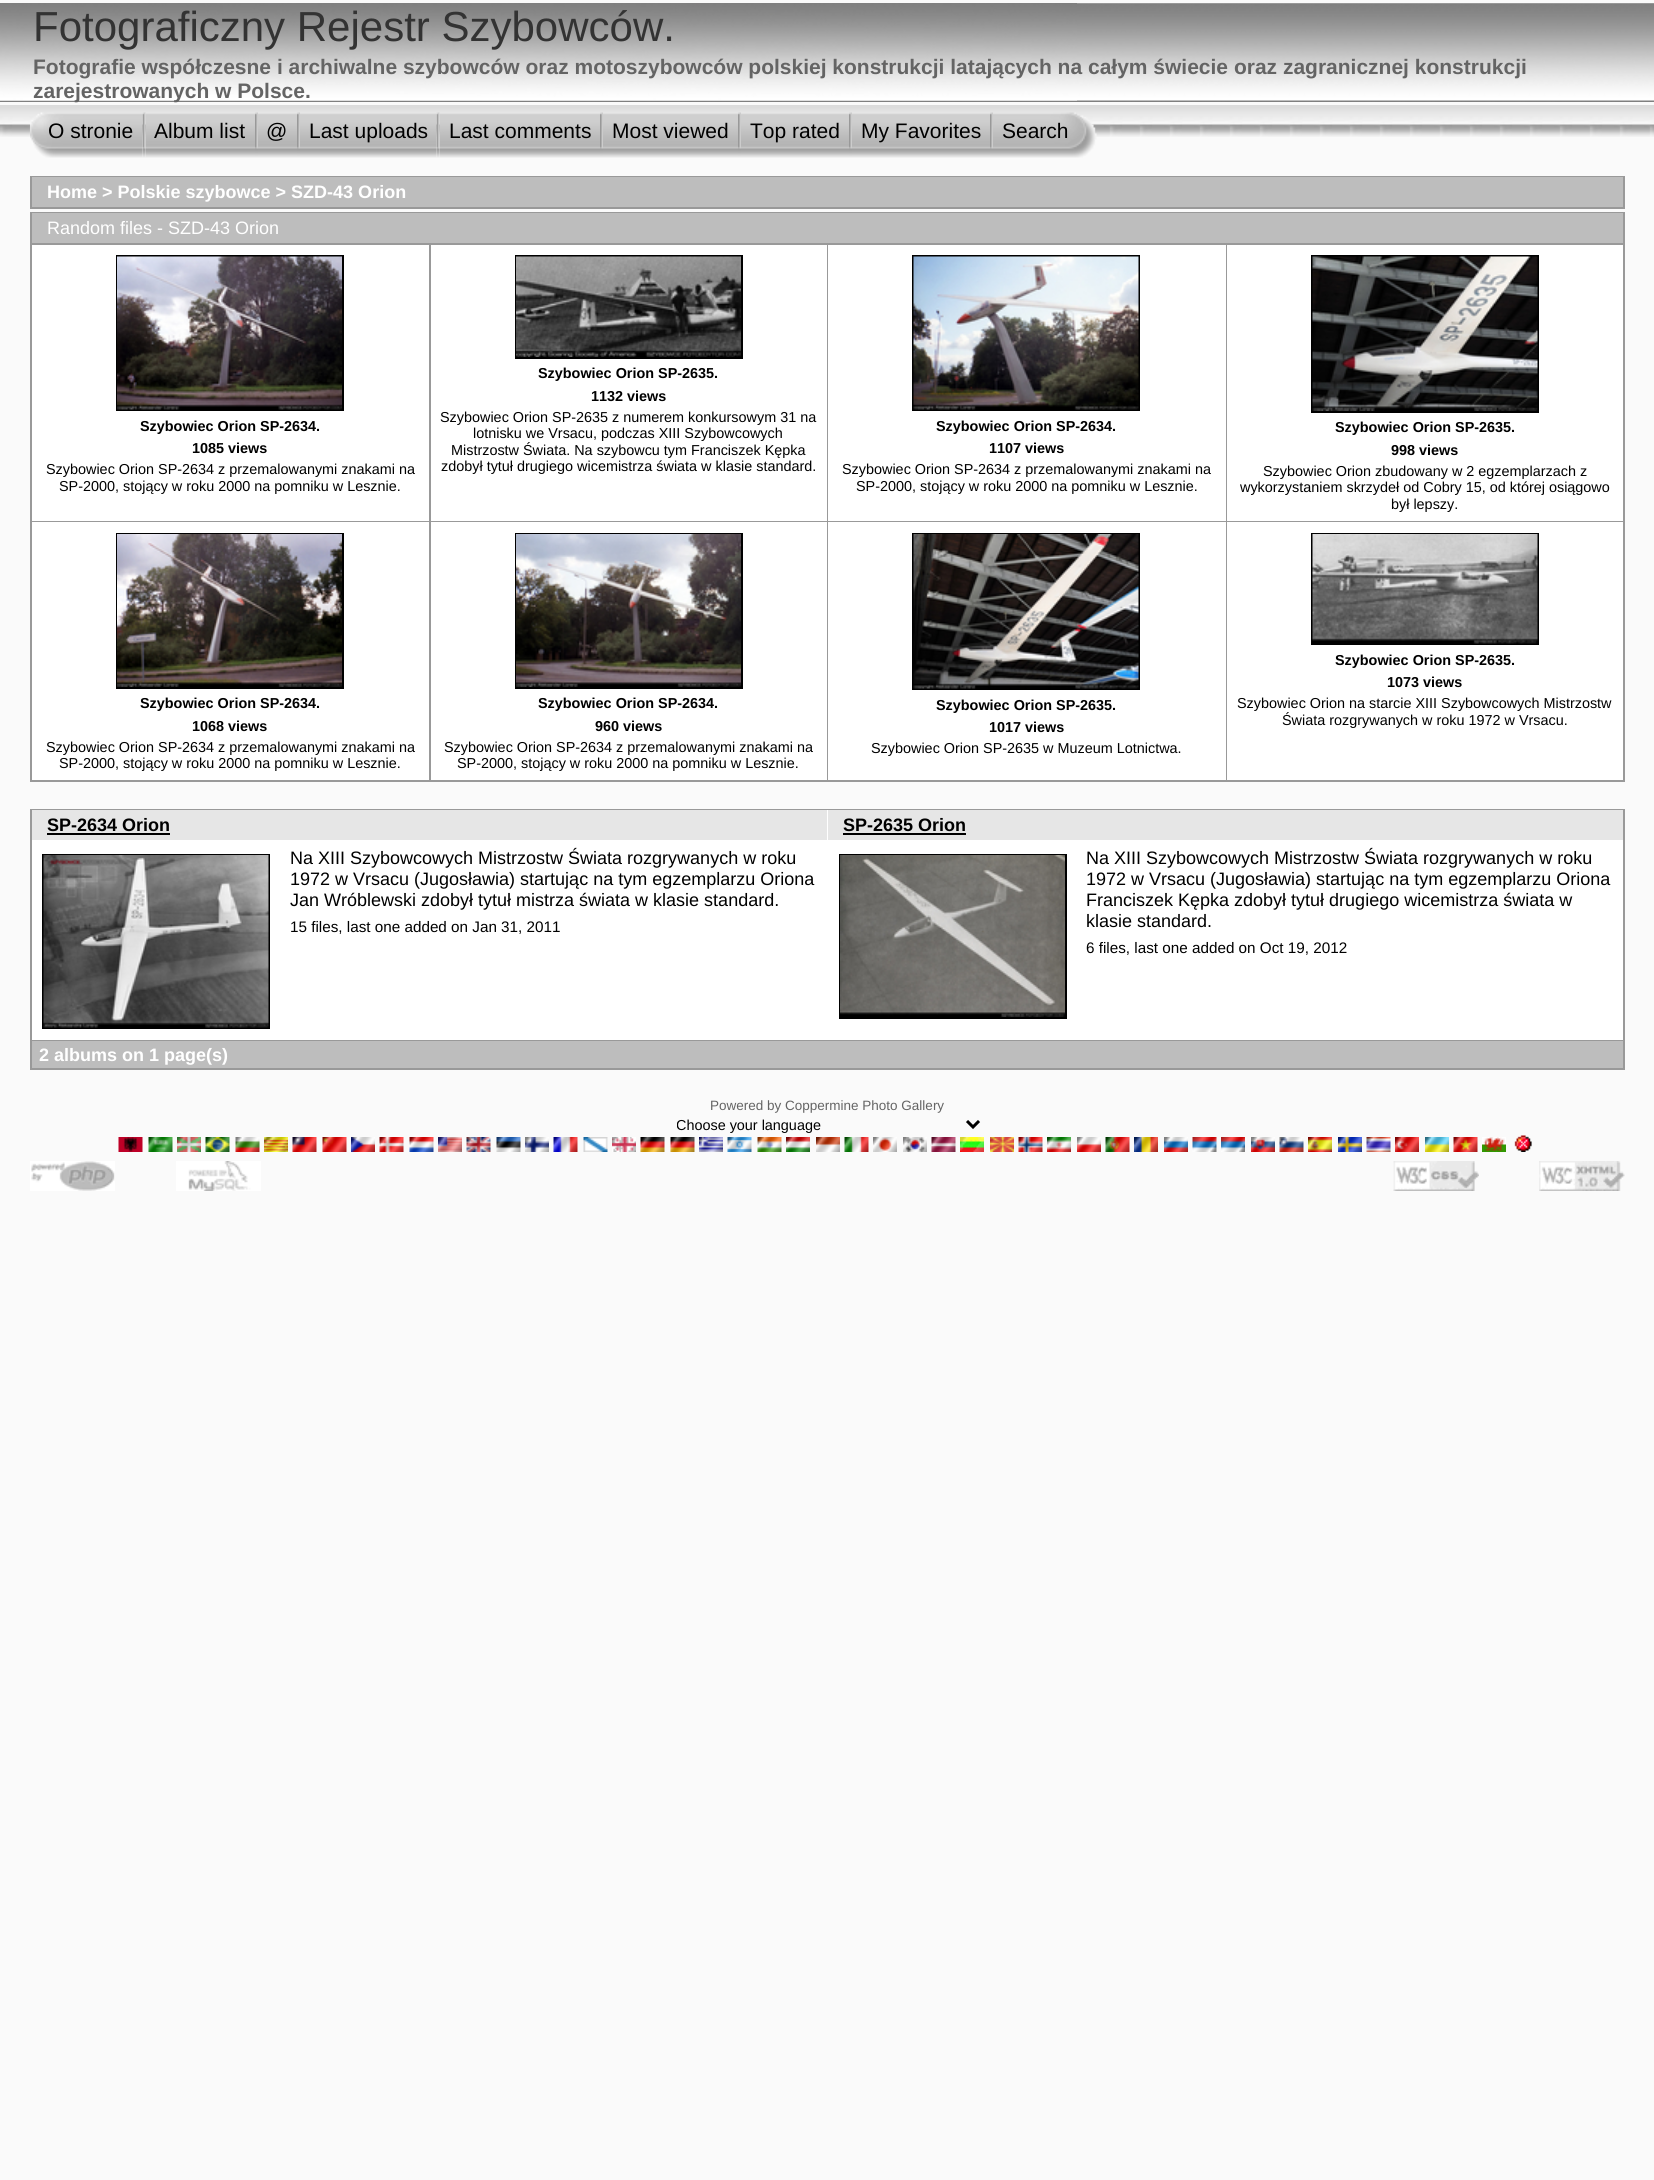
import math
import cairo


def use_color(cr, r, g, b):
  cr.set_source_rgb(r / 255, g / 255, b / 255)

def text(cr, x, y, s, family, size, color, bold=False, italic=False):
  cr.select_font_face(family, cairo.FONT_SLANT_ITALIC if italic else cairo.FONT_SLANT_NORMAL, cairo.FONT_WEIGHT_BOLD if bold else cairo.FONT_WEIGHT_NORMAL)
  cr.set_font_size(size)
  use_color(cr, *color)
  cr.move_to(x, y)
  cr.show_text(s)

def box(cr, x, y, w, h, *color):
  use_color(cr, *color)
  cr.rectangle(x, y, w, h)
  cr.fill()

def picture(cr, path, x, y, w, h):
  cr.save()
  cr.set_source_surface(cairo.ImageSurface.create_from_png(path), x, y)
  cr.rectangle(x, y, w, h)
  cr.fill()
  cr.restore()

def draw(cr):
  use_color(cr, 250, 250, 250)
  cr.paint()
  picture(cr, "img_01.png", 0, 3, 1654, 99)
  picture(cr, "img_02.png", 0, 3, 1077, 98)
  picture(cr, "img_03.png", 0, 105, 1654, 32)
  picture(cr, "img_05.png", 142, 112, 4, 46)
  picture(cr, "img_04.png", 30, 112, 113, 46)
  picture(cr, "img_06.png", 145, 113, 110, 45)
  picture(cr, "img_07.png", 255, 112, 3, 46)
  picture(cr, "img_08.png", 258, 113, 39, 45)
  picture(cr, "img_09.png", 297, 112, 3, 46)
  picture(cr, "img_11.png", 436, 112, 4, 46)
  picture(cr, "img_10.png", 300, 113, 137, 45)
  picture(cr, "img_12.png", 439, 113, 161, 45)
  picture(cr, "img_09.png", 600, 112, 3, 46)
  picture(cr, "img_13.png", 603, 113, 135, 45)
  picture(cr, "img_09.png", 738, 112, 3, 46)
  picture(cr, "img_14.png", 741, 113, 108, 45)
  picture(cr, "img_07.png", 849, 112, 3, 46)
  picture(cr, "img_15.png", 852, 113, 138, 45)
  picture(cr, "img_07.png", 990, 112, 3, 46)
  picture(cr, "img_16.png", 993, 112, 104, 46)
  box(cr, 30, 176, 1595, 33, 153, 153, 153)
  box(cr, 32, 177, 1591, 30, 189, 189, 189)
  box(cr, 30, 212, 1595, 570, 153, 153, 153)
  box(cr, 32, 213, 1591, 30, 189, 189, 189)
  box(cr, 32, 245, 397, 276, 255, 255, 255)
  cr.rectangle(117, 256, 226, 154)
  use_color(cr, 0, 0, 0)
  cr.stroke()
  picture(cr, "img_17.png", 117, 256, 225, 154)
  box(cr, 431, 245, 396, 276, 255, 255, 255)
  cr.rectangle(516, 256, 226, 102)
  use_color(cr, 0, 0, 0)
  cr.stroke()
  picture(cr, "img_18.png", 516, 256, 225, 101)
  box(cr, 828, 245, 398, 276, 255, 255, 255)
  cr.rectangle(913, 256, 226, 154)
  use_color(cr, 0, 0, 0)
  cr.stroke()
  picture(cr, "img_19.png", 913, 256, 226, 154)
  box(cr, 1227, 245, 396, 276, 255, 255, 255)
  cr.rectangle(1312, 256, 226, 156)
  use_color(cr, 0, 0, 0)
  cr.stroke()
  picture(cr, "img_20.png", 1312, 256, 226, 155)
  box(cr, 32, 522, 397, 258, 255, 255, 255)
  cr.rectangle(117, 534, 226, 154)
  use_color(cr, 0, 0, 0)
  cr.stroke()
  picture(cr, "img_21.png", 117, 534, 225, 153)
  box(cr, 431, 522, 396, 258, 255, 255, 255)
  cr.rectangle(516, 534, 226, 154)
  use_color(cr, 0, 0, 0)
  cr.stroke()
  picture(cr, "img_22.png", 516, 534, 225, 153)
  box(cr, 828, 522, 398, 258, 255, 255, 255)
  cr.rectangle(913, 534, 226, 155)
  use_color(cr, 0, 0, 0)
  cr.stroke()
  picture(cr, "img_23.png", 913, 534, 226, 155)
  box(cr, 1227, 522, 396, 258, 255, 255, 255)
  cr.rectangle(1312, 534, 226, 110)
  use_color(cr, 0, 0, 0)
  cr.stroke()
  picture(cr, "img_24.png", 1312, 534, 226, 110)
  box(cr, 30, 809, 1595, 261, 153, 153, 153)
  box(cr, 32, 810, 1591, 230, 255, 255, 255)
  box(cr, 32, 810, 795, 30, 230, 230, 230)
  box(cr, 47, 833, 123, 2, 0, 0, 0)
  cr.rectangle(43, 855, 226, 173)
  cr.stroke()
  picture(cr, "img_25.png", 43, 855, 226, 173)
  box(cr, 828, 810, 795, 30, 230, 230, 230)
  box(cr, 843, 833, 123, 2, 0, 0, 0)
  cr.rectangle(840, 855, 226, 163)
  cr.stroke()
  picture(cr, "img_26.png", 840, 855, 225, 162)
  box(cr, 32, 1041, 1591, 27, 189, 189, 189)
  cr.new_path()
  cr.move_to(967, 1121)
  cr.line_to(973, 1127)
  cr.line_to(979, 1121)
  use_color(cr, 0, 0, 0)
  cr.set_line_width(3)
  cr.stroke()
  picture(cr, "img_27.png", 118, 1137, 25, 15)
  picture(cr, "img_28.png", 148, 1137, 25, 15)
  picture(cr, "img_29.png", 177, 1137, 24, 15)
  picture(cr, "img_30.png", 205, 1137, 25, 15)
  picture(cr, "img_31.png", 235, 1137, 25, 15)
  picture(cr, "img_32.png", 264, 1137, 24, 15)
  picture(cr, "img_33.png", 292, 1137, 25, 15)
  picture(cr, "img_34.png", 322, 1137, 25, 15)
  picture(cr, "img_35.png", 351, 1137, 24, 15)
  picture(cr, "img_36.png", 379, 1137, 25, 15)
  picture(cr, "img_37.png", 409, 1137, 25, 15)
  picture(cr, "img_38.png", 438, 1137, 24, 15)
  picture(cr, "img_39.png", 466, 1137, 25, 15)
  picture(cr, "img_40.png", 496, 1137, 25, 15)
  picture(cr, "img_41.png", 525, 1137, 24, 15)
  picture(cr, "img_42.png", 553, 1137, 25, 15)
  picture(cr, "img_43.png", 583, 1137, 25, 15)
  picture(cr, "img_44.png", 612, 1137, 24, 15)
  picture(cr, "img_45.png", 640, 1137, 25, 15)
  picture(cr, "img_45.png", 670, 1137, 25, 15)
  picture(cr, "img_46.png", 699, 1137, 24, 15)
  picture(cr, "img_47.png", 727, 1137, 25, 15)
  picture(cr, "img_48.png", 757, 1137, 25, 15)
  picture(cr, "img_49.png", 786, 1137, 24, 15)
  picture(cr, "img_50.png", 816, 1137, 24, 15)
  picture(cr, "img_51.png", 844, 1137, 25, 15)
  picture(cr, "img_52.png", 873, 1137, 24, 15)
  picture(cr, "img_53.png", 903, 1137, 24, 15)
  picture(cr, "img_54.png", 931, 1137, 25, 15)
  picture(cr, "img_55.png", 960, 1137, 24, 15)
  picture(cr, "img_56.png", 990, 1137, 24, 15)
  picture(cr, "img_57.png", 1018, 1137, 25, 15)
  picture(cr, "img_58.png", 1047, 1137, 24, 15)
  picture(cr, "img_59.png", 1077, 1137, 24, 15)
  picture(cr, "img_60.png", 1105, 1137, 25, 15)
  picture(cr, "img_61.png", 1134, 1137, 24, 15)
  picture(cr, "img_62.png", 1164, 1137, 24, 15)
  picture(cr, "img_63.png", 1192, 1137, 25, 15)
  picture(cr, "img_64.png", 1221, 1137, 24, 15)
  picture(cr, "img_65.png", 1251, 1137, 24, 15)
  picture(cr, "img_66.png", 1279, 1137, 25, 15)
  picture(cr, "img_67.png", 1308, 1137, 24, 15)
  picture(cr, "img_68.png", 1338, 1137, 24, 15)
  picture(cr, "img_69.png", 1366, 1137, 25, 15)
  picture(cr, "img_70.png", 1395, 1137, 24, 15)
  picture(cr, "img_71.png", 1425, 1137, 24, 15)
  picture(cr, "img_72.png", 1453, 1137, 25, 15)
  picture(cr, "img_73.png", 1482, 1137, 24, 15)
  picture(cr, "img_74.png", 1514, 1135, 18, 17)
  picture(cr, "img_75.png", 30, 1161, 85, 30)
  picture(cr, "img_76.png", 176, 1161, 85, 30)
  picture(cr, "img_77.png", 1393, 1161, 86, 30)
  picture(cr, "img_78.png", 1539, 1161, 86, 30)
  text(cr, 33, 41, "Fotograficzny Rejestr Szybowców.", "Liberation Sans", 42, (51, 51, 51))
  text(cr, 33, 74, "Fotografie współczesne i archiwalne szybowców oraz motoszybowców polskiej konstrukcji latających na całym świecie oraz zagranicznej konstrukcji", "Liberation Sans", 21, (100, 100, 100), bold=True)
  text(cr, 33, 98, "zarejestrowanych w Polsce.", "Liberation Sans", 21, (100, 100, 100), bold=True)
  text(cr, 48, 138, "O stronie", "Liberation Sans", 21, (0, 0, 0))
  text(cr, 154, 138, "Album list", "Liberation Sans", 21, (0, 0, 0))
  text(cr, 266, 138, "@", "Liberation Sans", 21, (0, 0, 0))
  text(cr, 309, 138, "Last uploads", "Liberation Sans", 21, (0, 0, 0))
  text(cr, 449, 138, "Last comments", "Liberation Sans", 21, (0, 0, 0))
  text(cr, 612, 138, "Most viewed", "Liberation Sans", 21, (0, 0, 0))
  text(cr, 750, 138, "Top rated", "Liberation Sans", 21, (0, 0, 0))
  text(cr, 861, 138, "My Favorites", "Liberation Sans", 21, (0, 0, 0))
  text(cr, 1002, 138, "Search", "Liberation Sans", 21, (0, 0, 0))
  text(cr, 47, 198, "Home > Polskie szybowce > SZD-43 Orion", "Liberation Sans", 18, (255, 255, 255), bold=True)
  text(cr, 47, 234, "Random files - SZD-43 Orion", "Liberation Sans", 18, (255, 255, 255))
  text(cr, 140, 431, "Szybowiec Orion SP-2634.", "Liberation Sans", 14.4, (0, 0, 0), bold=True)
  text(cr, 192, 453, "1085 views", "Liberation Sans", 14.4, (0, 0, 0), bold=True)
  text(cr, 46, 474, "Szybowiec Orion SP-2634 z przemalowanymi znakami na", "Liberation Sans", 14.4, (0, 0, 0))
  text(cr, 59, 491, "SP-2000, stojący w roku 2000 na pomniku w Lesznie.", "Liberation Sans", 14.4, (0, 0, 0))
  text(cr, 538, 378, "Szybowiec Orion SP-2635.", "Liberation Sans", 14.4, (0, 0, 0), bold=True)
  text(cr, 591, 401, "1132 views", "Liberation Sans", 14.4, (0, 0, 0), bold=True)
  text(cr, 440, 422, "Szybowiec Orion SP-2635 z numerem konkursowym 31 na", "Liberation Sans", 14.4, (0, 0, 0))
  text(cr, 473, 438, "lotnisku we Vrsacu, podczas XIII Szybowcowych", "Liberation Sans", 14.4, (0, 0, 0))
  text(cr, 451, 455, "Mistrzostw Świata. Na szybowcu tym Franciszek Kępka", "Liberation Sans", 14.4, (0, 0, 0))
  text(cr, 441, 471, "zdobył tytuł drugiego wicemistrza świata w klasie standard.", "Liberation Sans", 14.4, (0, 0, 0))
  text(cr, 936, 431, "Szybowiec Orion SP-2634.", "Liberation Sans", 14.4, (0, 0, 0), bold=True)
  text(cr, 989, 453, "1107 views", "Liberation Sans", 14.4, (0, 0, 0), bold=True)
  text(cr, 842, 474, "Szybowiec Orion SP-2634 z przemalowanymi znakami na", "Liberation Sans", 14.4, (0, 0, 0))
  text(cr, 856, 491, "SP-2000, stojący w roku 2000 na pomniku w Lesznie.", "Liberation Sans", 14.4, (0, 0, 0))
  text(cr, 1335, 432, "Szybowiec Orion SP-2635.", "Liberation Sans", 14.4, (0, 0, 0), bold=True)
  text(cr, 1391, 455, "998 views", "Liberation Sans", 14.4, (0, 0, 0), bold=True)
  text(cr, 1263, 476, "Szybowiec Orion zbudowany w 2 egzemplarzach z", "Liberation Sans", 14.4, (0, 0, 0))
  text(cr, 1240, 492, "wykorzystaniem skrzydeł od Cobry 15, od której osiągowo", "Liberation Sans", 14.4, (0, 0, 0))
  text(cr, 1391, 509, "był lepszy.", "Liberation Sans", 14.4, (0, 0, 0))
  text(cr, 140, 708, "Szybowiec Orion SP-2634.", "Liberation Sans", 14.4, (0, 0, 0), bold=True)
  text(cr, 192, 731, "1068 views", "Liberation Sans", 14.4, (0, 0, 0), bold=True)
  text(cr, 46, 752, "Szybowiec Orion SP-2634 z przemalowanymi znakami na", "Liberation Sans", 14.4, (0, 0, 0))
  text(cr, 59, 768, "SP-2000, stojący w roku 2000 na pomniku w Lesznie.", "Liberation Sans", 14.4, (0, 0, 0))
  text(cr, 538, 708, "Szybowiec Orion SP-2634.", "Liberation Sans", 14.4, (0, 0, 0), bold=True)
  text(cr, 595, 731, "960 views", "Liberation Sans", 14.4, (0, 0, 0), bold=True)
  text(cr, 444, 752, "Szybowiec Orion SP-2634 z przemalowanymi znakami na", "Liberation Sans", 14.4, (0, 0, 0))
  text(cr, 457, 768, "SP-2000, stojący w roku 2000 na pomniku w Lesznie.", "Liberation Sans", 14.4, (0, 0, 0))
  text(cr, 936, 710, "Szybowiec Orion SP-2635.", "Liberation Sans", 14.4, (0, 0, 0), bold=True)
  text(cr, 989, 732, "1017 views", "Liberation Sans", 14.4, (0, 0, 0), bold=True)
  text(cr, 871, 753, "Szybowiec Orion SP-2635 w Muzeum Lotnictwa.", "Liberation Sans", 14.4, (0, 0, 0))
  text(cr, 1335, 665, "Szybowiec Orion SP-2635.", "Liberation Sans", 14.4, (0, 0, 0), bold=True)
  text(cr, 1387, 687, "1073 views", "Liberation Sans", 14.4, (0, 0, 0), bold=True)
  text(cr, 1237, 708, "Szybowiec Orion na starcie XIII Szybowcowych Mistrzostw", "Liberation Sans", 14.4, (0, 0, 0))
  text(cr, 1282, 725, "Świata rozgrywanych w roku 1972 w Vrsacu.", "Liberation Sans", 14.4, (0, 0, 0))
  text(cr, 47, 831, "SP-2634 Orion", "Liberation Sans", 18, (0, 0, 0), bold=True)
  text(cr, 290, 864, "Na XIII Szybowcowych Mistrzostw Świata rozgrywanych w roku", "Liberation Sans", 18, (0, 0, 0))
  text(cr, 290, 885, "1972 w Vrsacu (Jugosławia) startując na tym egzemplarzu Oriona", "Liberation Sans", 18, (0, 0, 0))
  text(cr, 290, 906, "Jan Wróblewski zdobył tytuł mistrza świata w klasie standard.", "Liberation Sans", 18, (0, 0, 0))
  text(cr, 290, 932, "15 files, last one added on Jan 31, 2011", "Liberation Sans", 15.25, (0, 0, 0))
  text(cr, 843, 831, "SP-2635 Orion", "Liberation Sans", 18, (0, 0, 0), bold=True)
  text(cr, 1086, 864, "Na XIII Szybowcowych Mistrzostw Świata rozgrywanych w roku", "Liberation Sans", 18, (0, 0, 0))
  text(cr, 1086, 885, "1972 w Vrsacu (Jugosławia) startując na tym egzemplarzu Oriona", "Liberation Sans", 18, (0, 0, 0))
  text(cr, 1086, 906, "Franciszek Kępka zdobył tytuł drugiego wicemistrza świata w", "Liberation Sans", 18, (0, 0, 0))
  text(cr, 1086, 927, "klasie standard.", "Liberation Sans", 18, (0, 0, 0))
  text(cr, 1086, 953, "6 files, last one added on Oct 19, 2012", "Liberation Sans", 15.25, (0, 0, 0))
  text(cr, 39, 1061, "2 albums on 1 page(s)", "Liberation Sans", 18, (255, 255, 255), bold=True)
  text(cr, 710, 1110, "Powered by Coppermine Photo Gallery", "Liberation Sans", 13.5, (100, 100, 100))
  cr.save()
  cr.rectangle(677, 1115, 285, 19)
  cr.clip()
  text(cr, 676, 1130, "Choose your language", "Liberation Sans", 14.4, (0, 0, 0))
  cr.restore()


surface = cairo.ImageSurface(cairo.FORMAT_RGB24, 1654, 2180)
cr = cairo.Context(surface)
options = cairo.FontOptions()
options.set_hint_metrics(cairo.HINT_METRICS_OFF)
options.set_hint_style(cairo.HINT_STYLE_NONE)
cr.set_font_options(options)
cr.set_miter_limit(4)
draw(cr)
surface.write_to_png("out.png")
